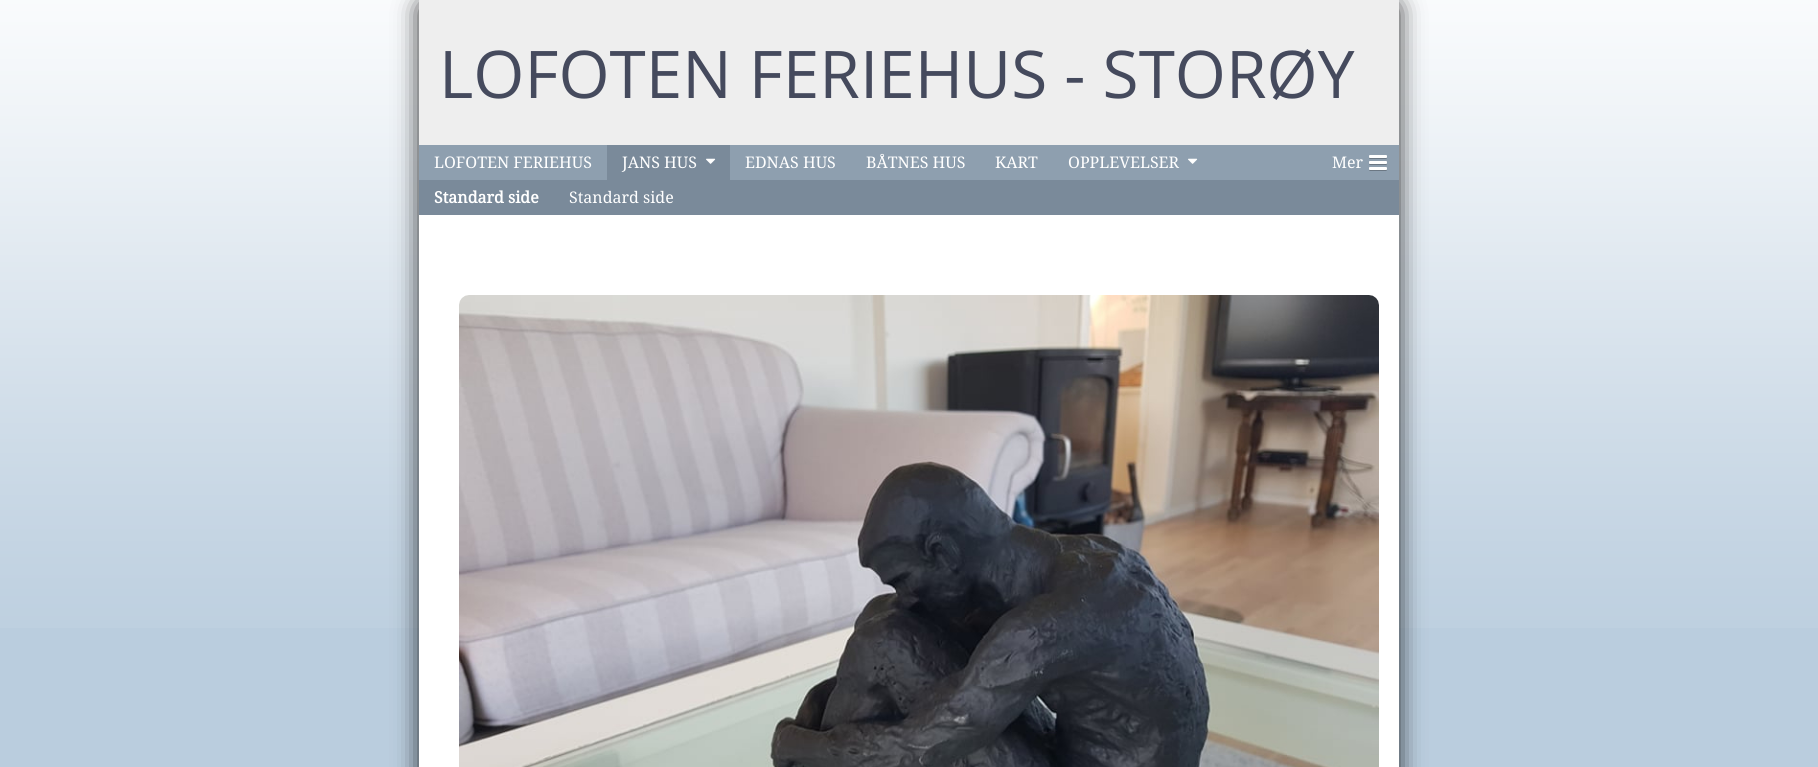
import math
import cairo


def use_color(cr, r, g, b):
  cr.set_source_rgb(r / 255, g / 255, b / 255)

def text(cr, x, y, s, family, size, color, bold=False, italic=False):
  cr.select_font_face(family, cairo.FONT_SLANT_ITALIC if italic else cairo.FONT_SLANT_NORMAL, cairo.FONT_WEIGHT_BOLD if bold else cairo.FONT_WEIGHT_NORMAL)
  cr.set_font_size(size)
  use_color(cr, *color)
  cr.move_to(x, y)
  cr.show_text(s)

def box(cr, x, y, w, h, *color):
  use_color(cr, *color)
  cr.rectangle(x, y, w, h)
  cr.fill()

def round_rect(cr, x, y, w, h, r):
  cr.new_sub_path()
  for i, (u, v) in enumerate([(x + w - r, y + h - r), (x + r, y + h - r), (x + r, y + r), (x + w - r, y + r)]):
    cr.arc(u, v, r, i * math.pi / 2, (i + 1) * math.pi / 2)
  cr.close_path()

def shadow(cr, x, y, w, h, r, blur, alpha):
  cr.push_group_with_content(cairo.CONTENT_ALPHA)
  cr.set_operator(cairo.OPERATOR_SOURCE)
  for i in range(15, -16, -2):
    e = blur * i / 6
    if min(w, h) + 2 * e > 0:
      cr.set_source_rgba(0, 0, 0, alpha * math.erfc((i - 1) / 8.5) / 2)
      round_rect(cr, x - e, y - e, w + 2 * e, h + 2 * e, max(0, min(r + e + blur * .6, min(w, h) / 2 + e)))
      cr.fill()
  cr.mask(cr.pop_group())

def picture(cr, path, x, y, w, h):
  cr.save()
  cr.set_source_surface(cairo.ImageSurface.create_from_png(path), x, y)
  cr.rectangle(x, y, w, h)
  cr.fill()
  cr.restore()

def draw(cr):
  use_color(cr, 186, 205, 222)
  cr.paint()
  picture(cr, "img_01.png", 0, 0, 1818, 628)
  use_color(cr, 0, 0, 0)
  shadow(cr, 419, 0, 980, 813, 10, 12, 0.8)
  box(cr, 419, 215, 980, 552, 255, 255, 255)
  box(cr, 419, 0, 980, 145, 238, 238, 238)
  box(cr, 419, 145, 980, 35, 142, 159, 175)
  box(cr, 607, 145, 123, 35, 122, 138, 154)
  picture(cr, "img_02.png", 706, 158, 10, 6)
  box(cr, 419, 180, 980, 35, 122, 138, 154)
  picture(cr, "img_03.png", 1188, 158, 10, 6)
  use_color(cr, 107, 119, 131)
  cr.new_path()
  cr.move_to(1369, 157)
  cr.curve_to(1369, 159.5, 1370, 159, 1372.5, 159)
  cr.line_to(1383.5, 159)
  cr.curve_to(1386, 159, 1387, 159.5, 1387, 157)
  cr.curve_to(1387, 157.5, 1386.5, 158, 1386, 158)
  cr.line_to(1370, 158)
  cr.curve_to(1369.5, 158, 1369, 157.5, 1369, 157)
  cr.close_path()
  cr.fill()
  use_color(cr, 255, 255, 255)
  round_rect(cr, 1369, 155, 18, 3, 1)
  cr.fill()
  use_color(cr, 107, 119, 131)
  cr.new_path()
  cr.move_to(1369, 163)
  cr.curve_to(1369, 165.5, 1370, 165, 1372.5, 165)
  cr.line_to(1383.5, 165)
  cr.curve_to(1386, 165, 1387, 165.5, 1387, 163)
  cr.curve_to(1387, 163.5, 1386.5, 164, 1386, 164)
  cr.line_to(1370, 164)
  cr.curve_to(1369.5, 164, 1369, 163.5, 1369, 163)
  cr.close_path()
  cr.fill()
  use_color(cr, 255, 255, 255)
  round_rect(cr, 1369, 161, 18, 3, 1)
  cr.fill()
  use_color(cr, 107, 119, 131)
  cr.new_path()
  cr.move_to(1369, 169)
  cr.curve_to(1369, 171.5, 1370, 171, 1372.5, 171)
  cr.line_to(1383.5, 171)
  cr.curve_to(1386, 171, 1387, 171.5, 1387, 169)
  cr.curve_to(1387, 169.5, 1386.5, 170, 1386, 170)
  cr.line_to(1370, 170)
  cr.curve_to(1369.5, 170, 1369, 169.5, 1369, 169)
  cr.close_path()
  cr.fill()
  use_color(cr, 255, 255, 255)
  round_rect(cr, 1369, 167, 18, 3, 1)
  cr.fill()
  picture(cr, "img_04.png", 459, 295, 920, 472)
  text(cr, 439, 98, "LOFOTEN FERIEHUS - STORØY", "Open Sans", 65.75, (69, 74, 93))
  text(cr, 434, 168, "LOFOTEN FERIEHUS", "Noto Serif", 16, (255, 255, 255))
  text(cr, 866, 168, "BÅTNES HUS", "Noto Serif", 16, (255, 255, 255))
  text(cr, 622, 168, "JANS HUS", "Noto Serif", 16, (255, 255, 255))
  text(cr, 434, 203, "Standard side", "Noto Serif", 16, (255, 255, 255), bold=True)
  text(cr, 569, 203, "Standard side", "Noto Serif", 16, (255, 255, 255))
  text(cr, 745, 168, "EDNAS HUS", "Noto Serif", 16, (255, 255, 255))
  text(cr, 995, 168, "KART", "Noto Serif", 16, (255, 255, 255))
  text(cr, 1068, 168, "OPPLEVELSER", "Noto Serif", 16, (255, 255, 255))
  text(cr, 1332, 168, "Mer", "Noto Serif", 16, (255, 255, 255))


surface = cairo.ImageSurface(cairo.FORMAT_RGB24, 1818, 767)
cr = cairo.Context(surface)
options = cairo.FontOptions()
options.set_hint_metrics(cairo.HINT_METRICS_OFF)
options.set_hint_style(cairo.HINT_STYLE_NONE)
cr.set_font_options(options)
cr.set_miter_limit(4)
draw(cr)
surface.write_to_png("out.png")
